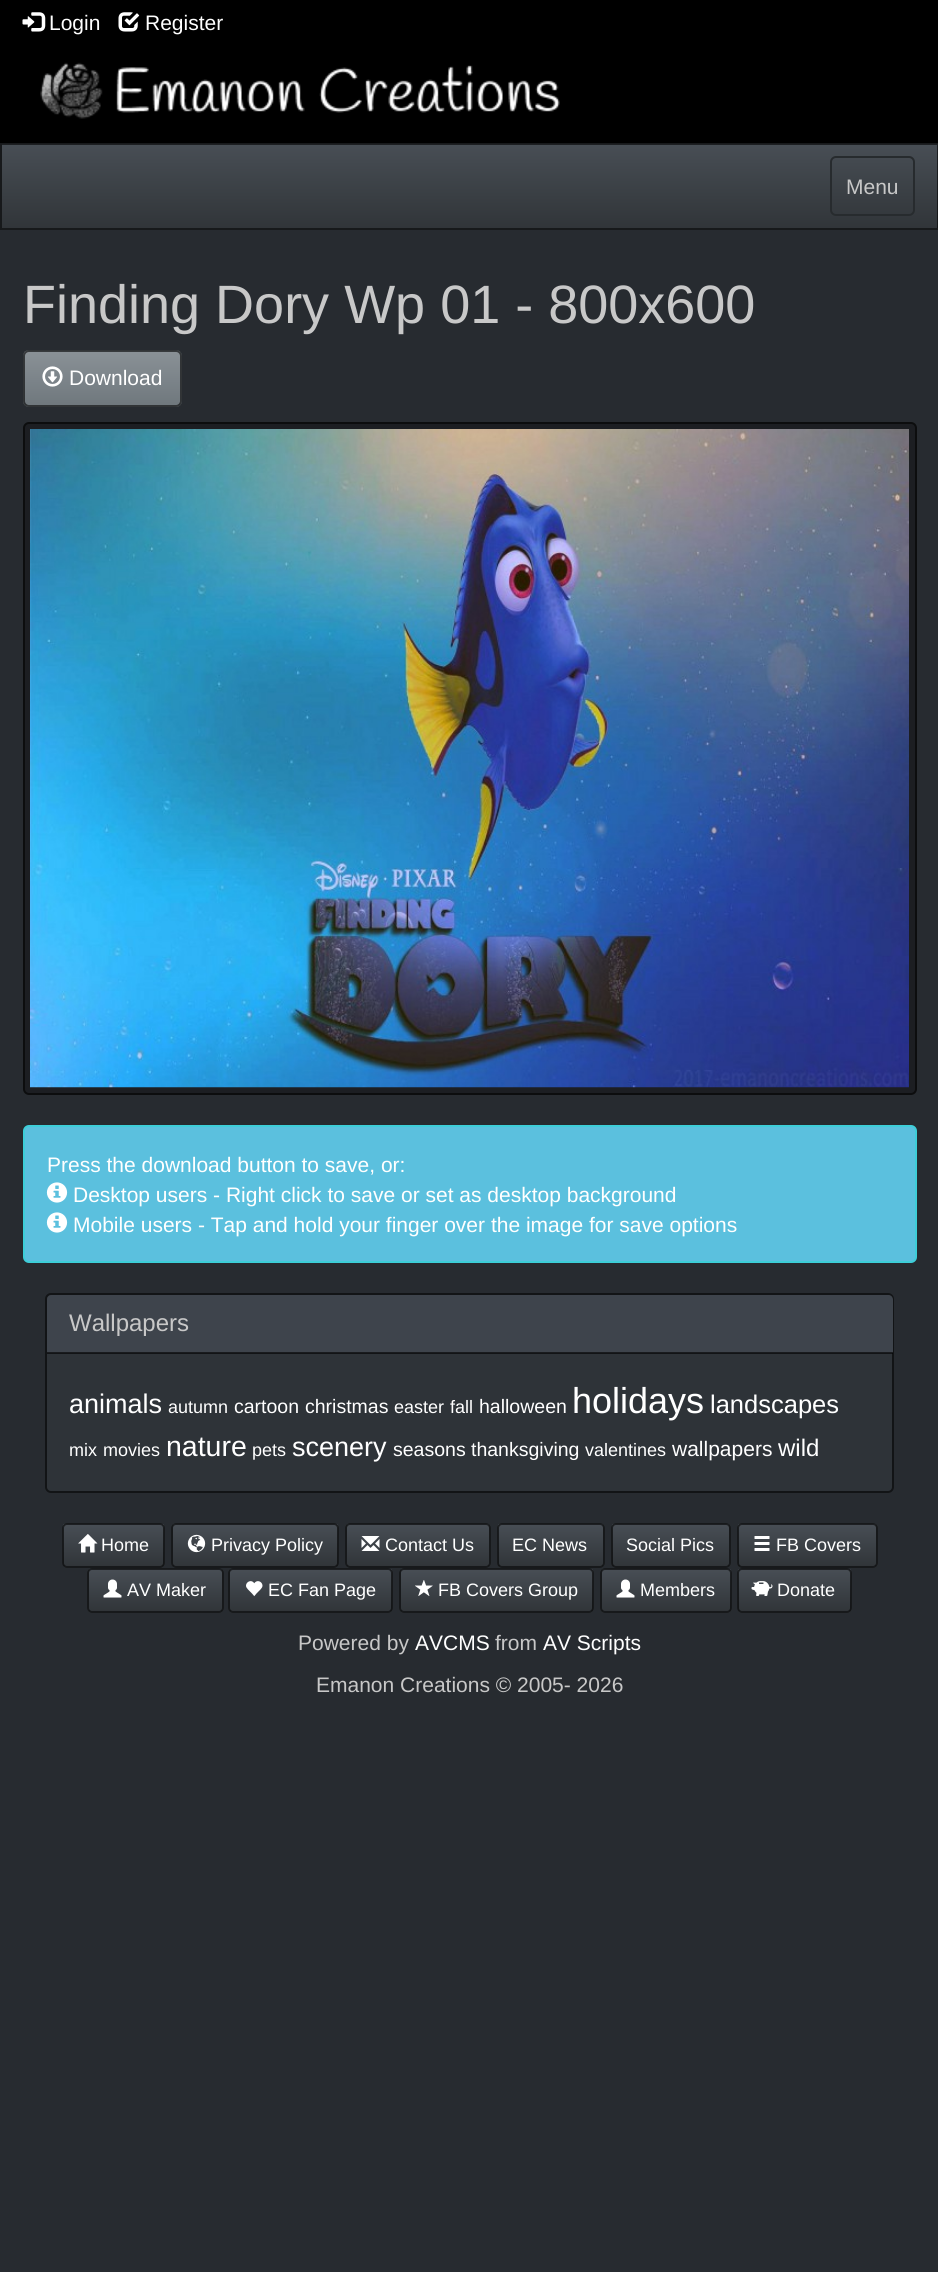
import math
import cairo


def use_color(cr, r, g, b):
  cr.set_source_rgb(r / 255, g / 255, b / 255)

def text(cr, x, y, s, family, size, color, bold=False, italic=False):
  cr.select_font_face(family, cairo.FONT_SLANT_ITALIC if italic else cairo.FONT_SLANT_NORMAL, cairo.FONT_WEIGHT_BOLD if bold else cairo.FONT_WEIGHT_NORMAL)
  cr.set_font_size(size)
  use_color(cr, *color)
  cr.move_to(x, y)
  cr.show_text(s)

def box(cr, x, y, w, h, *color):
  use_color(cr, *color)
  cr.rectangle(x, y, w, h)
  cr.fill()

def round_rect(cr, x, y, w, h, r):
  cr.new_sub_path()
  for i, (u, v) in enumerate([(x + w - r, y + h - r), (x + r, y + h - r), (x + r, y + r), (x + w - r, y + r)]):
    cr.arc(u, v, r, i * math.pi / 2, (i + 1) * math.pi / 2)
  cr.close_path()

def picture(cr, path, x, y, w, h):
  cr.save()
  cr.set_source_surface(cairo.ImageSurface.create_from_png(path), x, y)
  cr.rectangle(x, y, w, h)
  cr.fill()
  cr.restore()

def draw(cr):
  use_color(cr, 39, 43, 48)
  cr.paint()
  box(cr, 0, 0, 938, 143, 0, 0, 0)
  picture(cr, "img_01.png", 22, 12, 24, 20)
  picture(cr, "img_02.png", 118, 12, 22, 20)
  picture(cr, "img_03.png", 40, 62, 520, 57)
  box(cr, 0, 143, 938, 87, 58, 63, 68)
  gradient = cairo.LinearGradient(470, 144, 470, 228)
  gradient.add_color_stop_rgba(0, 0.282, 0.306, 0.333, 1)
  gradient.add_color_stop_rgba(0.6, 0.227, 0.247, 0.267, 1)
  gradient.add_color_stop_rgba(1, 0.192, 0.208, 0.224, 1)
  cr.set_source(gradient)
  cr.rectangle(2, 144, 936, 84)
  cr.fill()
  cr.rectangle(1, 144, 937, 85)
  cr.set_source_rgba(0, 0, 0, 0.6)
  cr.stroke()
  round_rect(cr, 831, 157, 83, 58, 5)
  use_color(cr, 39, 43, 46)
  cr.stroke()
  use_color(cr, 122, 130, 136)
  round_rect(cr, 23, 350, 159, 57, 6)
  cr.fill()
  cr.save()
  round_rect(cr, 23, 350, 159, 57, 6)
  cr.clip()
  gradient = cairo.LinearGradient(102, 351, 102, 405)
  gradient.add_color_stop_rgba(0, 0.541, 0.569, 0.588, 1)
  gradient.add_color_stop_rgba(0.6, 0.478, 0.51, 0.533, 1)
  gradient.add_color_stop_rgba(1, 0.439, 0.471, 0.49, 1)
  cr.set_source(gradient)
  cr.rectangle(24, 351, 156, 54)
  cr.fill()
  cr.restore()
  round_rect(cr, 24, 351, 157, 55, 5)
  cr.set_source_rgba(0, 0, 0, 0.6)
  cr.stroke()
  picture(cr, "img_04.png", 42, 366, 21, 21)
  use_color(cr, 28, 30, 34)
  round_rect(cr, 24, 423, 892, 671, 5)
  cr.fill_preserve()
  use_color(cr, 12, 13, 14)
  cr.stroke()
  picture(cr, "img_05.png", 30, 429, 879, 659)
  use_color(cr, 91, 192, 222)
  round_rect(cr, 24, 1126, 892, 136, 5)
  cr.fill_preserve()
  use_color(cr, 61, 206, 216)
  cr.stroke()
  picture(cr, "img_06.png", 46, 1182, 22, 21)
  picture(cr, "img_06.png", 46, 1212, 22, 21)
  use_color(cr, 46, 51, 56)
  round_rect(cr, 46, 1294, 847, 198, 5)
  cr.fill_preserve()
  use_color(cr, 18, 20, 22)
  cr.stroke()
  use_color(cr, 62, 68, 76)
  cr.new_path()
  cr.move_to(52, 1295)
  cr.line_to(888, 1295)
  cr.curve_to(891, 1295, 893, 1297, 893, 1300)
  cr.line_to(893, 1353)
  cr.line_to(47, 1353)
  cr.line_to(47, 1300)
  cr.curve_to(47, 1297, 49, 1295, 52, 1295)
  cr.close_path()
  cr.fill()
  cr.set_source_rgba(0, 0, 0, 0.6)
  cr.rectangle(47, 1352, 846, 2)
  cr.fill()
  use_color(cr, 58, 63, 68)
  round_rect(cr, 62, 1523, 103, 45, 5)
  cr.fill()
  gradient = cairo.LinearGradient(113, 1524, 113, 1566)
  gradient.add_color_stop_rgba(0, 0.282, 0.306, 0.333, 1)
  gradient.add_color_stop_rgba(0.6, 0.227, 0.247, 0.267, 1)
  gradient.add_color_stop_rgba(1, 0.192, 0.208, 0.224, 1)
  cr.set_source(gradient)
  cr.rectangle(63, 1524, 101, 42)
  cr.fill()
  round_rect(cr, 63, 1524, 101, 43, 4)
  cr.set_source_rgba(0, 0, 0, 0.6)
  cr.stroke()
  picture(cr, "img_07.png", 78, 1534, 20, 19)
  use_color(cr, 58, 63, 68)
  round_rect(cr, 171, 1523, 168, 45, 5)
  cr.fill()
  gradient = cairo.LinearGradient(255, 1524, 255, 1566)
  gradient.add_color_stop_rgba(0, 0.282, 0.306, 0.333, 1)
  gradient.add_color_stop_rgba(0.6, 0.227, 0.247, 0.267, 1)
  gradient.add_color_stop_rgba(1, 0.192, 0.208, 0.224, 1)
  cr.set_source(gradient)
  cr.rectangle(173, 1524, 165, 42)
  cr.fill()
  round_rect(cr, 172, 1524, 166, 43, 4)
  cr.set_source_rgba(0, 0, 0, 0.6)
  cr.stroke()
  picture(cr, "img_08.png", 187, 1534, 19, 19)
  use_color(cr, 58, 63, 68)
  round_rect(cr, 345, 1523, 146, 45, 5)
  cr.fill()
  gradient = cairo.LinearGradient(418, 1524, 418, 1566)
  gradient.add_color_stop_rgba(0, 0.282, 0.306, 0.333, 1)
  gradient.add_color_stop_rgba(0.6, 0.227, 0.247, 0.267, 1)
  gradient.add_color_stop_rgba(1, 0.192, 0.208, 0.224, 1)
  cr.set_source(gradient)
  cr.rectangle(347, 1524, 142, 42)
  cr.fill()
  round_rect(cr, 346, 1524, 144, 43, 4)
  cr.set_source_rgba(0, 0, 0, 0.6)
  cr.stroke()
  picture(cr, "img_09.png", 361, 1536, 19, 15)
  use_color(cr, 58, 63, 68)
  round_rect(cr, 497, 1523, 108, 45, 5)
  cr.fill()
  gradient = cairo.LinearGradient(551, 1524, 551, 1566)
  gradient.add_color_stop_rgba(0, 0.282, 0.306, 0.333, 1)
  gradient.add_color_stop_rgba(0.6, 0.227, 0.247, 0.267, 1)
  gradient.add_color_stop_rgba(1, 0.192, 0.208, 0.224, 1)
  cr.set_source(gradient)
  cr.rectangle(498, 1524, 105, 42)
  cr.fill()
  round_rect(cr, 498, 1524, 106, 43, 4)
  cr.set_source_rgba(0, 0, 0, 0.6)
  cr.stroke()
  use_color(cr, 58, 63, 68)
  round_rect(cr, 611, 1523, 120, 45, 5)
  cr.fill()
  gradient = cairo.LinearGradient(671, 1524, 671, 1566)
  gradient.add_color_stop_rgba(0, 0.282, 0.306, 0.333, 1)
  gradient.add_color_stop_rgba(0.6, 0.227, 0.247, 0.267, 1)
  gradient.add_color_stop_rgba(1, 0.192, 0.208, 0.224, 1)
  cr.set_source(gradient)
  cr.rectangle(612, 1524, 117, 42)
  cr.fill()
  round_rect(cr, 612, 1524, 118, 43, 4)
  cr.set_source_rgba(0, 0, 0, 0.6)
  cr.stroke()
  use_color(cr, 58, 63, 68)
  round_rect(cr, 737, 1523, 141, 45, 5)
  cr.fill()
  gradient = cairo.LinearGradient(807, 1524, 807, 1566)
  gradient.add_color_stop_rgba(0, 0.282, 0.306, 0.333, 1)
  gradient.add_color_stop_rgba(0.6, 0.227, 0.247, 0.267, 1)
  gradient.add_color_stop_rgba(1, 0.192, 0.208, 0.224, 1)
  cr.set_source(gradient)
  cr.rectangle(738, 1524, 138, 42)
  cr.fill()
  round_rect(cr, 738, 1524, 139, 43, 4)
  cr.set_source_rgba(0, 0, 0, 0.6)
  cr.stroke()
  picture(cr, "img_10.png", 754, 1536, 16, 15)
  use_color(cr, 58, 63, 68)
  round_rect(cr, 87, 1568, 137, 45, 5)
  cr.fill()
  gradient = cairo.LinearGradient(155, 1569, 155, 1611)
  gradient.add_color_stop_rgba(0, 0.282, 0.306, 0.333, 1)
  gradient.add_color_stop_rgba(0.6, 0.227, 0.247, 0.267, 1)
  gradient.add_color_stop_rgba(1, 0.192, 0.208, 0.224, 1)
  cr.set_source(gradient)
  cr.rectangle(89, 1569, 133, 42)
  cr.fill()
  round_rect(cr, 88, 1569, 135, 43, 4)
  cr.set_source_rgba(0, 0, 0, 0.6)
  cr.stroke()
  picture(cr, "img_11.png", 103, 1579, 19, 19)
  use_color(cr, 58, 63, 68)
  round_rect(cr, 228, 1568, 165, 45, 5)
  cr.fill()
  gradient = cairo.LinearGradient(311, 1569, 311, 1611)
  gradient.add_color_stop_rgba(0, 0.282, 0.306, 0.333, 1)
  gradient.add_color_stop_rgba(0.6, 0.227, 0.247, 0.267, 1)
  gradient.add_color_stop_rgba(1, 0.192, 0.208, 0.224, 1)
  cr.set_source(gradient)
  cr.rectangle(230, 1569, 162, 42)
  cr.fill()
  round_rect(cr, 229, 1569, 163, 43, 4)
  cr.set_source_rgba(0, 0, 0, 0.6)
  cr.stroke()
  picture(cr, "img_12.png", 246, 1581, 17, 16)
  use_color(cr, 58, 63, 68)
  round_rect(cr, 399, 1568, 195, 45, 5)
  cr.fill()
  gradient = cairo.LinearGradient(497, 1569, 497, 1611)
  gradient.add_color_stop_rgba(0, 0.282, 0.306, 0.333, 1)
  gradient.add_color_stop_rgba(0.6, 0.227, 0.247, 0.267, 1)
  gradient.add_color_stop_rgba(1, 0.192, 0.208, 0.224, 1)
  cr.set_source(gradient)
  cr.rectangle(401, 1569, 192, 42)
  cr.fill()
  round_rect(cr, 400, 1569, 193, 43, 4)
  cr.set_source_rgba(0, 0, 0, 0.6)
  cr.stroke()
  picture(cr, "img_13.png", 415, 1580, 18, 16)
  use_color(cr, 58, 63, 68)
  round_rect(cr, 600, 1568, 132, 45, 5)
  cr.fill()
  gradient = cairo.LinearGradient(666, 1569, 666, 1611)
  gradient.add_color_stop_rgba(0, 0.282, 0.306, 0.333, 1)
  gradient.add_color_stop_rgba(0.6, 0.227, 0.247, 0.267, 1)
  gradient.add_color_stop_rgba(1, 0.192, 0.208, 0.224, 1)
  cr.set_source(gradient)
  cr.rectangle(602, 1569, 129, 42)
  cr.fill()
  round_rect(cr, 601, 1569, 130, 43, 4)
  cr.set_source_rgba(0, 0, 0, 0.6)
  cr.stroke()
  picture(cr, "img_11.png", 616, 1579, 19, 19)
  use_color(cr, 58, 63, 68)
  round_rect(cr, 737, 1568, 115, 45, 5)
  cr.fill()
  gradient = cairo.LinearGradient(794, 1569, 794, 1611)
  gradient.add_color_stop_rgba(0, 0.282, 0.306, 0.333, 1)
  gradient.add_color_stop_rgba(0.6, 0.227, 0.247, 0.267, 1)
  gradient.add_color_stop_rgba(1, 0.192, 0.208, 0.224, 1)
  cr.set_source(gradient)
  cr.rectangle(738, 1569, 113, 42)
  cr.fill()
  round_rect(cr, 738, 1569, 113, 43, 4)
  cr.set_source_rgba(0, 0, 0, 0.6)
  cr.stroke()
  picture(cr, "img_14.png", 751, 1581, 22, 15)
  text(cr, 49, 30, "Login", "Liberation Sans", 21, (255, 255, 255))
  text(cr, 145, 30, "Register", "Liberation Sans", 21, (255, 255, 255))
  text(cr, 846, 194, "Menu", "Liberation Sans", 21, (200, 200, 200))
  text(cr, 23, 323, "Finding Dory Wp 01 - 800x600", "Liberation Sans", 54, (200, 200, 200))
  text(cr, 69, 385, "Download", "Liberation Sans", 21, (255, 255, 255))
  text(cr, 47, 1172, "Press the download button to save, or:", "Liberation Sans", 21, (255, 255, 255))
  text(cr, 73, 1202, "Desktop users - Right click to save or set as desktop background", "Liberation Sans", 21, (255, 255, 255))
  text(cr, 73, 1232, "Mobile users - Tap and hold your finger over the image for save options", "Liberation Sans", 21, (255, 255, 255))
  text(cr, 69, 1331, "Wallpapers", "Liberation Sans", 24, (200, 200, 200))
  text(cr, 69, 1413, "animals", "Liberation Sans", 27, (255, 255, 255))
  text(cr, 168, 1413, "autumn", "Liberation Sans", 18, (255, 255, 255))
  text(cr, 234, 1413, "cartoon", "Liberation Sans", 19.5, (255, 255, 255))
  text(cr, 305, 1413, "christmas", "Liberation Sans", 19.5, (255, 255, 255))
  text(cr, 394, 1413, "easter", "Liberation Sans", 18, (255, 255, 255))
  text(cr, 450, 1413, "fall", "Liberation Sans", 18, (255, 255, 255))
  text(cr, 479, 1413, "halloween", "Liberation Sans", 19.5, (255, 255, 255))
  text(cr, 572, 1413, "holidays", "Liberation Sans", 36, (255, 255, 255))
  text(cr, 710, 1413, "landscapes", "Liberation Sans", 25.5, (255, 255, 255))
  text(cr, 69, 1456, "mix", "Liberation Sans", 18, (255, 255, 255))
  text(cr, 103, 1456, "movies", "Liberation Sans", 18, (255, 255, 255))
  text(cr, 166, 1456, "nature", "Liberation Sans", 28.5, (255, 255, 255))
  text(cr, 252, 1456, "pets", "Liberation Sans", 18, (255, 255, 255))
  text(cr, 292, 1456, "scenery", "Liberation Sans", 27, (255, 255, 255))
  text(cr, 393, 1456, "seasons", "Liberation Sans", 19.5, (255, 255, 255))
  text(cr, 471, 1456, "thanksgiving", "Liberation Sans", 19.5, (255, 255, 255))
  text(cr, 585, 1456, "valentines", "Liberation Sans", 18, (255, 255, 255))
  text(cr, 672, 1456, "wallpapers", "Liberation Sans", 21, (255, 255, 255))
  text(cr, 778, 1456, "wild", "Liberation Sans", 24, (255, 255, 255))
  text(cr, 101, 1551, "Home", "Liberation Sans", 18, (255, 255, 255))
  text(cr, 211, 1551, "Privacy Policy", "Liberation Sans", 18, (255, 255, 255))
  text(cr, 385, 1551, "Contact Us", "Liberation Sans", 18, (255, 255, 255))
  text(cr, 512, 1551, "EC News", "Liberation Sans", 18, (255, 255, 255))
  text(cr, 626, 1551, "Social Pics", "Liberation Sans", 18, (255, 255, 255))
  text(cr, 776, 1551, "FB Covers", "Liberation Sans", 18, (255, 255, 255))
  text(cr, 127, 1596, "AV Maker", "Liberation Sans", 18, (255, 255, 255))
  text(cr, 268, 1596, "EC Fan Page", "Liberation Sans", 18, (255, 255, 255))
  text(cr, 438, 1596, "FB Covers Group", "Liberation Sans", 18, (255, 255, 255))
  text(cr, 640, 1596, "Members", "Liberation Sans", 18, (255, 255, 255))
  text(cr, 777, 1596, "Donate", "Liberation Sans", 18, (255, 255, 255))
  text(cr, 298, 1650, "Powered by", "Liberation Sans", 21, (200, 200, 200))
  text(cr, 415, 1650, "AVCMS", "Liberation Sans", 21, (255, 255, 255))
  text(cr, 495, 1650, "from", "Liberation Sans", 21, (200, 200, 200))
  text(cr, 543, 1650, "AV Scripts", "Liberation Sans", 21, (255, 255, 255))
  text(cr, 316, 1692, "Emanon Creations © 2005- 2026", "Liberation Sans", 21, (200, 200, 200))


surface = cairo.ImageSurface(cairo.FORMAT_RGB24, 938, 2272)
cr = cairo.Context(surface)
options = cairo.FontOptions()
options.set_hint_metrics(cairo.HINT_METRICS_OFF)
options.set_hint_style(cairo.HINT_STYLE_NONE)
cr.set_font_options(options)
cr.set_miter_limit(4)
draw(cr)
surface.write_to_png("out.png")
